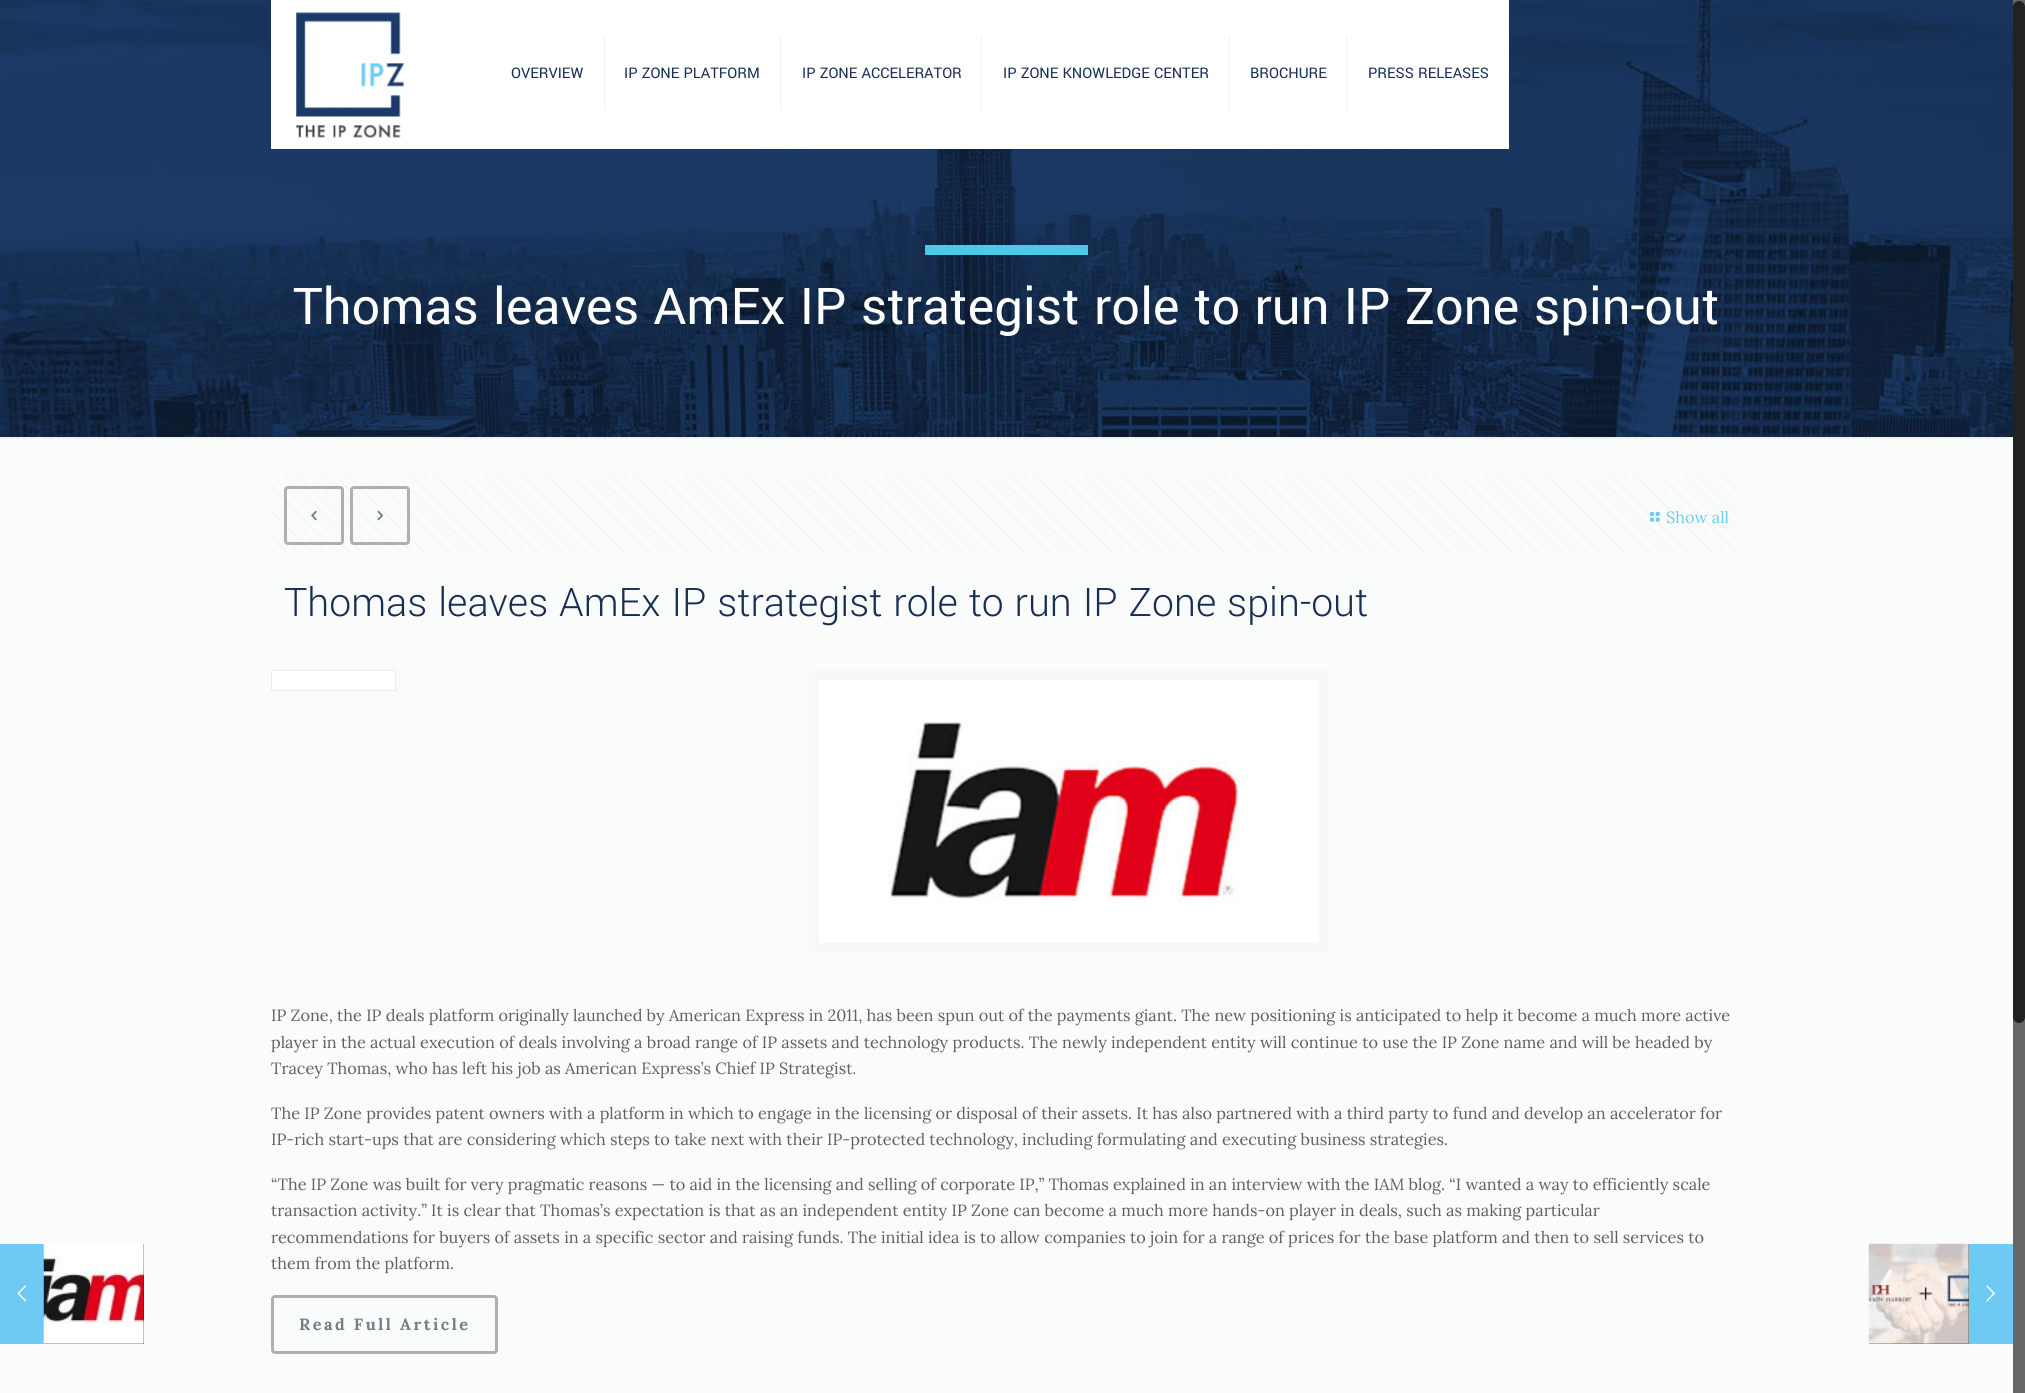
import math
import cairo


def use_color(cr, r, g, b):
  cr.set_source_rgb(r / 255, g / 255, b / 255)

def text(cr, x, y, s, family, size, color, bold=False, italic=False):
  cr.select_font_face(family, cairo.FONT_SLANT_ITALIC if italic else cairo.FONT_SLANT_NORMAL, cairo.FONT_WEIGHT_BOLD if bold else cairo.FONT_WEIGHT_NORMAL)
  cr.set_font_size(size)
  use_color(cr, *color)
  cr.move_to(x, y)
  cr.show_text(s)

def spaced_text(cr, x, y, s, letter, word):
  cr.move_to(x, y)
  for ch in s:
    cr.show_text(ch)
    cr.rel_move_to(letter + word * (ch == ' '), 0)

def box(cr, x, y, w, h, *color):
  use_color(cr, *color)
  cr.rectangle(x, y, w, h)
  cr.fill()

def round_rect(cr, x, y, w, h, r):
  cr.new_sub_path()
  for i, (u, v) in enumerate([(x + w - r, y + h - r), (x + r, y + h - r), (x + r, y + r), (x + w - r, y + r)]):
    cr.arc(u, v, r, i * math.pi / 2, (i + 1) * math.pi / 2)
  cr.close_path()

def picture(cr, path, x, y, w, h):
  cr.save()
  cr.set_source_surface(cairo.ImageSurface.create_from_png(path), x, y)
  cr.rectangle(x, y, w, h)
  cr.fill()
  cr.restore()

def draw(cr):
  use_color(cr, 250, 252, 252)
  cr.paint()
  box(cr, 0, 1244, 44, 100, 110, 202, 243)
  picture(cr, "img_01.png", 17, 1285, 10, 17)
  box(cr, 44, 1244, 100, 100, 0, 0, 0)
  picture(cr, "img_02.png", 43, 1244, 101, 100)
  picture(cr, "img_03.png", 0, 0, 2013, 437)
  box(cr, 271, 0, 1238, 149, 255, 255, 255)
  picture(cr, "img_04.png", 296, 12, 108, 126)
  box(cr, 604, 36, 1, 75, 242, 242, 242)
  box(cr, 780, 36, 1, 75, 242, 242, 242)
  box(cr, 981, 36, 1, 75, 242, 242, 242)
  box(cr, 1229, 36, 1, 75, 242, 242, 242)
  box(cr, 1346, 36, 1, 75, 242, 242, 242)
  box(cr, 925, 245, 163, 10, 75, 201, 232)
  picture(cr, "img_05.png", 0, 437, 2012, 2)
  picture(cr, "img_06.png", 271, 474, 1470, 83)
  round_rect(cr, 285.5, 487.5, 57, 56, 2.5)
  use_color(cr, 175, 175, 175)
  cr.set_line_width(3)
  cr.stroke()
  picture(cr, "img_07.png", 311, 510, 6, 11)
  round_rect(cr, 351.5, 487.5, 57, 56, 2.5)
  cr.stroke()
  picture(cr, "img_08.png", 377, 510, 6, 11)
  picture(cr, "img_09.png", 1650, 511, 10, 11)
  use_color(cr, 255, 255, 255)
  cr.rectangle(271.5, 670.5, 124, 20)
  cr.fill_preserve()
  use_color(cr, 235, 235, 235)
  cr.set_line_width(1)
  cr.stroke()
  cr.rectangle(814, 675, 510, 273)
  use_color(cr, 248, 248, 248)
  cr.set_line_width(10)
  cr.stroke()
  picture(cr, "img_10.png", 819, 680, 500, 263)
  round_rect(cr, 272.5, 1296.5, 224, 56, 2.5)
  use_color(cr, 175, 175, 175)
  cr.set_line_width(3)
  cr.stroke()
  box(cr, 1869, 1244, 100, 100, 0, 0, 0)
  picture(cr, "img_11.png", 1868, 1243, 101, 101)
  box(cr, 1969, 1244, 44, 100, 110, 202, 243)
  picture(cr, "img_12.png", 1986, 1285, 9, 17)
  box(cr, 2013, 0, 12, 1393, 102, 102, 102)
  use_color(cr, 34, 34, 34)
  round_rect(cr, 2013, 1, 12, 1022, 6)
  cr.fill()
  text(cr, 511, 78, "OVERVIEW", "Yantramanav", 16.25, (23, 46, 84))
  text(cr, 624, 78, "IP ZONE PLATFORM", "Yantramanav", 16.25, (23, 46, 84))
  text(cr, 802, 78, "IP ZONE ACCELERATOR", "Yantramanav", 16.25, (23, 46, 84))
  text(cr, 1003, 78, "IP ZONE KNOWLEDGE CENTER", "Yantramanav", 16.25, (23, 46, 84))
  text(cr, 1250, 78, "BROCHURE", "Yantramanav", 16.25, (23, 46, 84))
  text(cr, 1368, 78, "PRESS RELEASES", "Yantramanav", 16.25, (23, 46, 84))
  text(cr, 293, 324, "Thomas leaves AmEx IP strategist role to run IP Zone spin-out", "Yantramanav", 56.25, (255, 255, 255))
  text(cr, 1666, 523, "Show all", "Lora", 16.25, (110, 202, 243))
  text(cr, 284, 616, "Thomas leaves AmEx IP strategist role to run IP Zone spin-out", "Yantramanav Light", 43.75, (23, 46, 84))
  text(cr, 271, 1021, "IP Zone, the IP deals platform originally launched by American Express in 2011, has been spun out of the payments giant. The new positioning is anticipated to help it become a much more active", "Lora", 16.25, (96, 96, 96))
  text(cr, 271, 1048, "player in the actual execution of deals involving a broad range of IP assets and technology products. The newly independent entity will continue to use the IP Zone name and will be headed by", "Lora", 16.25, (96, 96, 96))
  text(cr, 271, 1074, "Tracey Thomas, who has left his job as American Express’s Chief IP Strategist.", "Lora", 16.25, (96, 96, 96))
  text(cr, 271, 1119, "The IP Zone provides patent owners with a platform in which to engage in the licensing or disposal of their assets. It has also partnered with a third party to fund and develop an accelerator for", "Lora", 16.25, (96, 96, 96))
  text(cr, 271, 1145, "IP-rich start-ups that are considering which steps to take next with their IP-protected technology, including formulating and executing business strategies.", "Lora", 16.25, (96, 96, 96))
  text(cr, 271, 1190, "“The IP Zone was built for very pragmatic reasons — to aid in the licensing and selling of corporate IP,” Thomas explained in an interview with the IAM blog. “I wanted a way to efficiently scale", "Lora", 16.25, (96, 96, 96))
  text(cr, 271, 1216, "transaction activity.” It is clear that Thomas’s expectation is that as an independent entity IP Zone can become a much more hands-on player in deals, such as making particular", "Lora", 16.25, (96, 96, 96))
  text(cr, 271, 1243, "recommendations for buyers of assets in a specific sector and raising funds. The initial idea is to allow companies to join for a range of prices for the base platform and then to sell services to", "Lora", 16.25, (96, 96, 96))
  text(cr, 271, 1269, "them from the platform.", "Lora", 16.25, (96, 96, 96))
  cr.select_font_face("Lora", cairo.FONT_SLANT_NORMAL, cairo.FONT_WEIGHT_BOLD)
  use_color(cr, 115, 126, 134)
  spaced_text(cr, 299, 1330, "Read Full Article", 2.5, 0)


surface = cairo.ImageSurface(cairo.FORMAT_RGB24, 2025, 1393)
cr = cairo.Context(surface)
options = cairo.FontOptions()
options.set_hint_metrics(cairo.HINT_METRICS_OFF)
options.set_hint_style(cairo.HINT_STYLE_NONE)
cr.set_font_options(options)
cr.set_miter_limit(4)
draw(cr)
surface.write_to_png("out.png")
